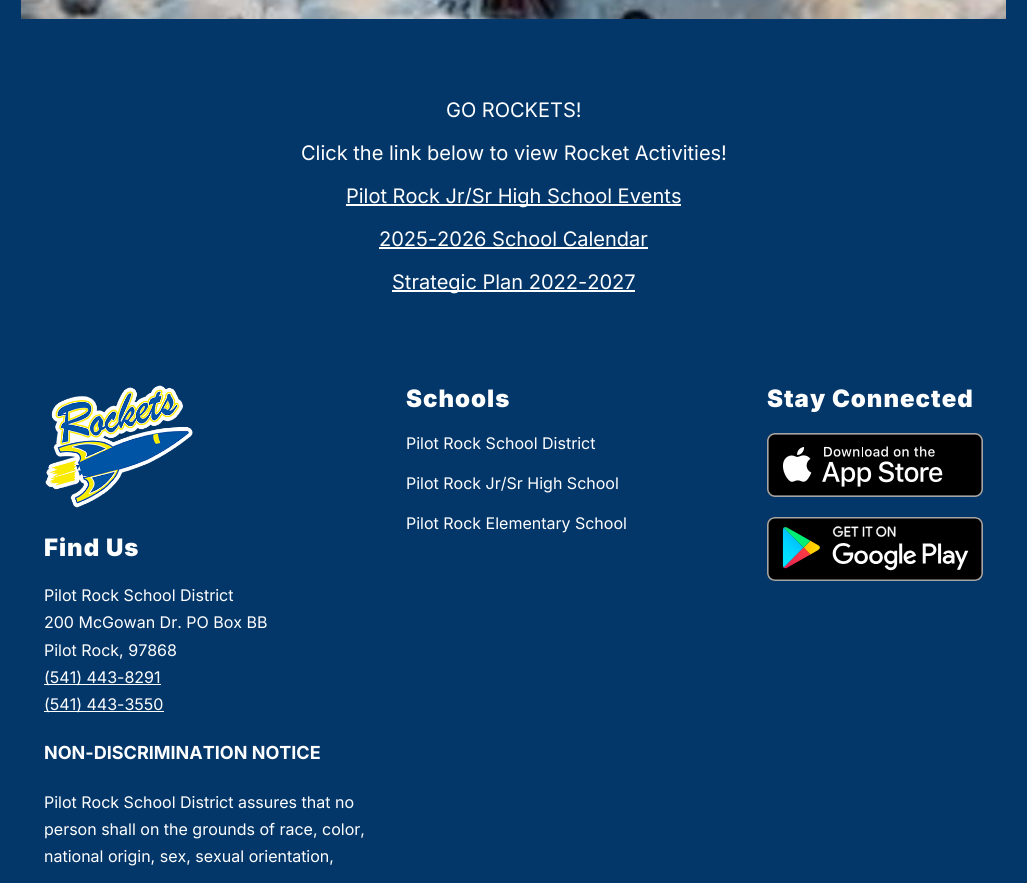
import math
import cairo


def use_color(cr, r, g, b):
  cr.set_source_rgb(r / 255, g / 255, b / 255)

def text(cr, x, y, s, family, size, color, bold=False, italic=False):
  cr.select_font_face(family, cairo.FONT_SLANT_ITALIC if italic else cairo.FONT_SLANT_NORMAL, cairo.FONT_WEIGHT_BOLD if bold else cairo.FONT_WEIGHT_NORMAL)
  cr.set_font_size(size)
  use_color(cr, *color)
  cr.move_to(x, y)
  cr.show_text(s)

def spaced_text(cr, x, y, s, letter, word):
  cr.move_to(x, y)
  for ch in s:
    cr.show_text(ch)
    cr.rel_move_to(letter + word * (ch == ' '), 0)

def box(cr, x, y, w, h, *color):
  use_color(cr, *color)
  cr.rectangle(x, y, w, h)
  cr.fill()

def picture(cr, path, x, y, w, h):
  cr.save()
  cr.set_source_surface(cairo.ImageSurface.create_from_png(path), x, y)
  cr.rectangle(x, y, w, h)
  cr.fill()
  cr.restore()

def draw(cr):
  use_color(cr, 3, 55, 106)
  cr.paint()
  picture(cr, "img_01.png", 21, 0, 985, 19)
  box(cr, 346, 204, 335, 2, 255, 255, 255)
  box(cr, 379, 247, 269, 2, 255, 255, 255)
  box(cr, 392, 290, 243, 2, 255, 255, 255)
  picture(cr, "img_02.png", 767, 433, 216, 64)
  picture(cr, "img_03.png", 767, 517, 216, 64)
  picture(cr, "img_04.png", 45, 385, 148, 123)
  box(cr, 44, 684, 117, 1, 255, 255, 255)
  box(cr, 44, 711, 120, 1, 255, 255, 255)
  text(cr, 446, 117, "GO ROCKETS!", "Inter", 20, (255, 255, 255))
  text(cr, 301, 160, "Click the link below to view Rocket Activities!", "Inter", 20, (255, 255, 255))
  text(cr, 346, 203, "Pilot Rock Jr/Sr High School Events", "Inter", 20, (255, 255, 255))
  text(cr, 379, 246, "2025-2026 School Calendar", "Inter", 20, (255, 255, 255))
  text(cr, 392, 289, "Strategic Plan 2022-2027", "Inter", 20, (255, 255, 255))
  cr.select_font_face("Inter Black")
  cr.set_font_size(24)
  spaced_text(cr, 406, 407, "Schools", 1, 0)
  text(cr, 406, 449, "Pilot Rock School District", "Inter", 16, (255, 255, 255))
  text(cr, 406, 489, "Pilot Rock Jr/Sr High School", "Inter", 16, (255, 255, 255))
  text(cr, 406, 529, "Pilot Rock Elementary School", "Inter", 16, (255, 255, 255))
  cr.select_font_face("Inter Black")
  cr.set_font_size(24)
  spaced_text(cr, 767, 407, "Stay Connected", 1, 0)
  spaced_text(cr, 44, 556, "Find Us", 1, 0)
  text(cr, 44, 601, "Pilot Rock School District", "Inter", 16, (255, 255, 255))
  text(cr, 44, 628, "200 McGowan Dr. PO Box BB", "Inter", 16, (255, 255, 255))
  text(cr, 44, 656, "Pilot Rock, 97868", "Inter", 16, (255, 255, 255))
  text(cr, 44, 683, "(541) 443-8291", "Inter", 16, (255, 255, 255))
  text(cr, 44, 710, "(541) 443-3550", "Inter", 16, (255, 255, 255))
  text(cr, 44, 759, "NON-DISCRIMINATION NOTICE", "Inter", 18, (255, 255, 255), bold=True)
  text(cr, 44, 808, "Pilot Rock School District assures that no", "Inter", 16, (255, 255, 255))
  text(cr, 44, 835, "person shall on the grounds of race, color,", "Inter", 16, (255, 255, 255))
  text(cr, 44, 862, "national origin, sex, sexual orientation,", "Inter", 16, (255, 255, 255))


surface = cairo.ImageSurface(cairo.FORMAT_RGB24, 1027, 883)
cr = cairo.Context(surface)
options = cairo.FontOptions()
options.set_hint_metrics(cairo.HINT_METRICS_OFF)
options.set_hint_style(cairo.HINT_STYLE_NONE)
cr.set_font_options(options)
cr.set_miter_limit(4)
draw(cr)
surface.write_to_png("out.png")
